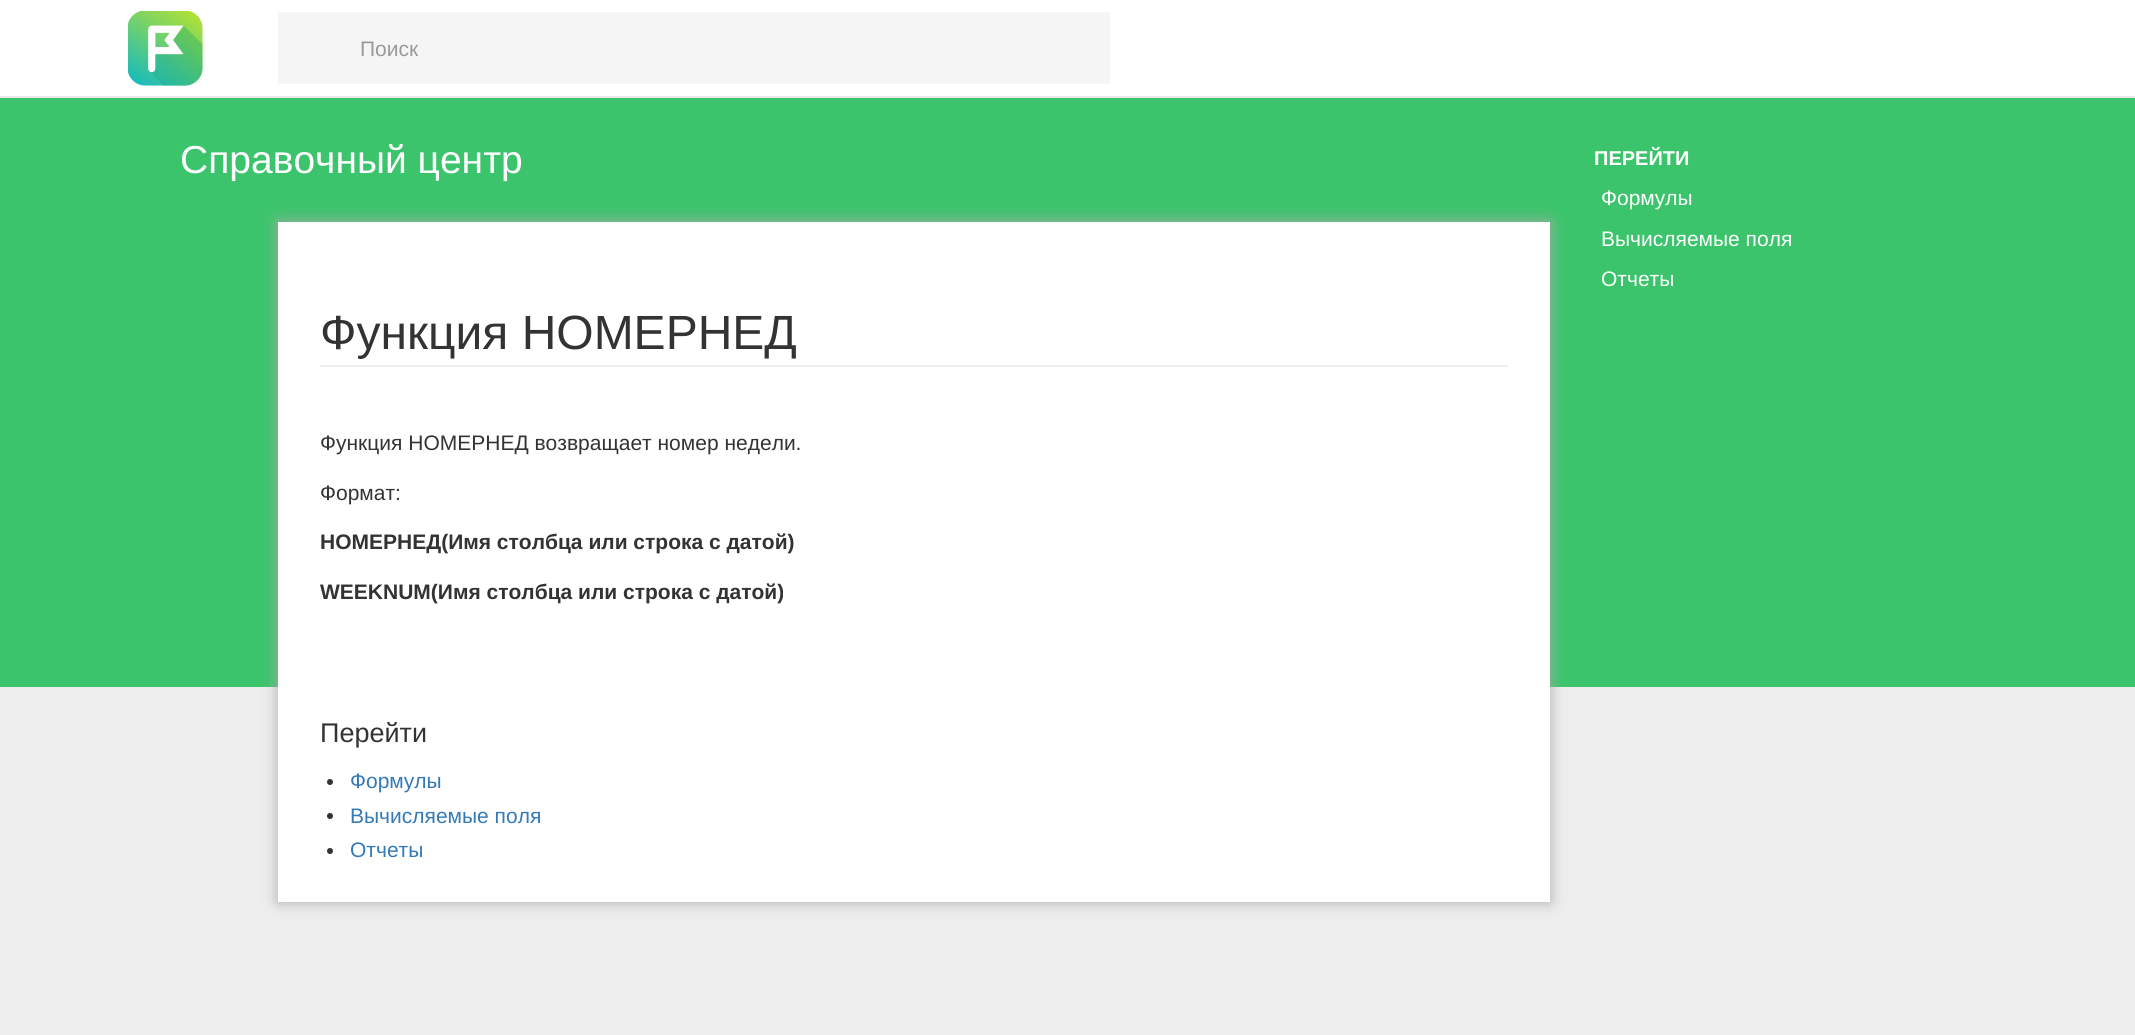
import math
import cairo


def use_color(cr, r, g, b):
  cr.set_source_rgb(r / 255, g / 255, b / 255)

def text(cr, x, y, s, family, size, color, bold=False, italic=False):
  cr.select_font_face(family, cairo.FONT_SLANT_ITALIC if italic else cairo.FONT_SLANT_NORMAL, cairo.FONT_WEIGHT_BOLD if bold else cairo.FONT_WEIGHT_NORMAL)
  cr.set_font_size(size)
  use_color(cr, *color)
  cr.move_to(x, y)
  cr.show_text(s)

def box(cr, x, y, w, h, *color):
  use_color(cr, *color)
  cr.rectangle(x, y, w, h)
  cr.fill()

def round_rect(cr, x, y, w, h, r):
  cr.new_sub_path()
  for i, (u, v) in enumerate([(x + w - r, y + h - r), (x + r, y + h - r), (x + r, y + r), (x + w - r, y + r)]):
    cr.arc(u, v, r, i * math.pi / 2, (i + 1) * math.pi / 2)
  cr.close_path()

def shadow(cr, x, y, w, h, r, blur, alpha):
  cr.push_group_with_content(cairo.CONTENT_ALPHA)
  cr.set_operator(cairo.OPERATOR_SOURCE)
  for i in range(15, -16, -2):
    e = blur * i / 6
    if min(w, h) + 2 * e > 0:
      cr.set_source_rgba(0, 0, 0, alpha * math.erfc((i - 1) / 8.5) / 2)
      round_rect(cr, x - e, y - e, w + 2 * e, h + 2 * e, max(0, min(r + e + blur * .6, min(w, h) / 2 + e)))
      cr.fill()
  cr.mask(cr.pop_group())

def picture(cr, path, x, y, w, h):
  cr.save()
  cr.set_source_surface(cairo.ImageSurface.create_from_png(path), x, y)
  cr.rectangle(x, y, w, h)
  cr.fill()
  cr.restore()

def draw(cr):
  use_color(cr, 238, 238, 238)
  cr.paint()
  box(cr, 0, 0, 2135, 96, 255, 255, 255)
  box(cr, 0, 96, 2135, 2, 231, 231, 231)
  picture(cr, "img_01.png", 128, 11, 75, 75)
  box(cr, 278, 12, 832, 72, 245, 245, 245)
  box(cr, 0, 98, 2135, 589, 60, 196, 108)
  use_color(cr, 170, 170, 170)
  shadow(cr, 278, 222, 1272, 680, 0, 7.5, 1)
  box(cr, 278, 222, 1272, 680, 255, 255, 255)
  box(cr, 320, 365, 1188, 2, 238, 238, 238)
  use_color(cr, 51, 51, 51)
  cr.arc(330, 782, 3, 0, 2 * math.pi)
  cr.fill()
  cr.arc(330, 816, 3, 0, 2 * math.pi)
  cr.fill()
  cr.arc(330, 851, 3, 0, 2 * math.pi)
  cr.fill()
  text(cr, 360, 56, "Поиск", "Liberation Sans", 21, (153, 153, 153))
  text(cr, 180, 173, "Справочный центр", "Liberation Sans", 39, (255, 255, 255))
  text(cr, 1594, 165, "ПЕРЕЙТИ", "Liberation Sans", 20, (255, 255, 255), bold=True)
  text(cr, 1601, 205, "Формулы", "Liberation Sans", 21, (255, 255, 255))
  text(cr, 1601, 246, "Вычисляемые поля", "Liberation Sans", 21, (255, 255, 255))
  text(cr, 1601, 286, "Отчеты", "Liberation Sans", 21, (255, 255, 255))
  text(cr, 320, 349, "Функция НОМЕРНЕД", "Liberation Sans", 48, (51, 51, 51))
  text(cr, 320, 450, "Функция НОМЕРНЕД возвращает номер недели.", "Liberation Sans", 21, (51, 51, 51))
  text(cr, 320, 500, "Формат:", "Liberation Sans", 21, (51, 51, 51))
  text(cr, 320, 549, "НОМЕРНЕД(Имя столбца или строка с датой)", "Liberation Sans", 21, (51, 51, 51), bold=True)
  text(cr, 320, 599, "WEEKNUM(Имя столбца или строка с датой)", "Liberation Sans", 21, (51, 51, 51), bold=True)
  text(cr, 320, 742, "Перейти", "Liberation Sans", 27, (51, 51, 51))
  text(cr, 350, 788, "Формулы", "Liberation Sans", 21, (51, 122, 183))
  text(cr, 350, 823, "Вычисляемые поля", "Liberation Sans", 21, (51, 122, 183))
  text(cr, 350, 857, "Отчеты", "Liberation Sans", 21, (51, 122, 183))


surface = cairo.ImageSurface(cairo.FORMAT_RGB24, 2135, 1035)
cr = cairo.Context(surface)
options = cairo.FontOptions()
options.set_hint_metrics(cairo.HINT_METRICS_OFF)
options.set_hint_style(cairo.HINT_STYLE_NONE)
cr.set_font_options(options)
cr.set_miter_limit(4)
draw(cr)
surface.write_to_png("out.png")
